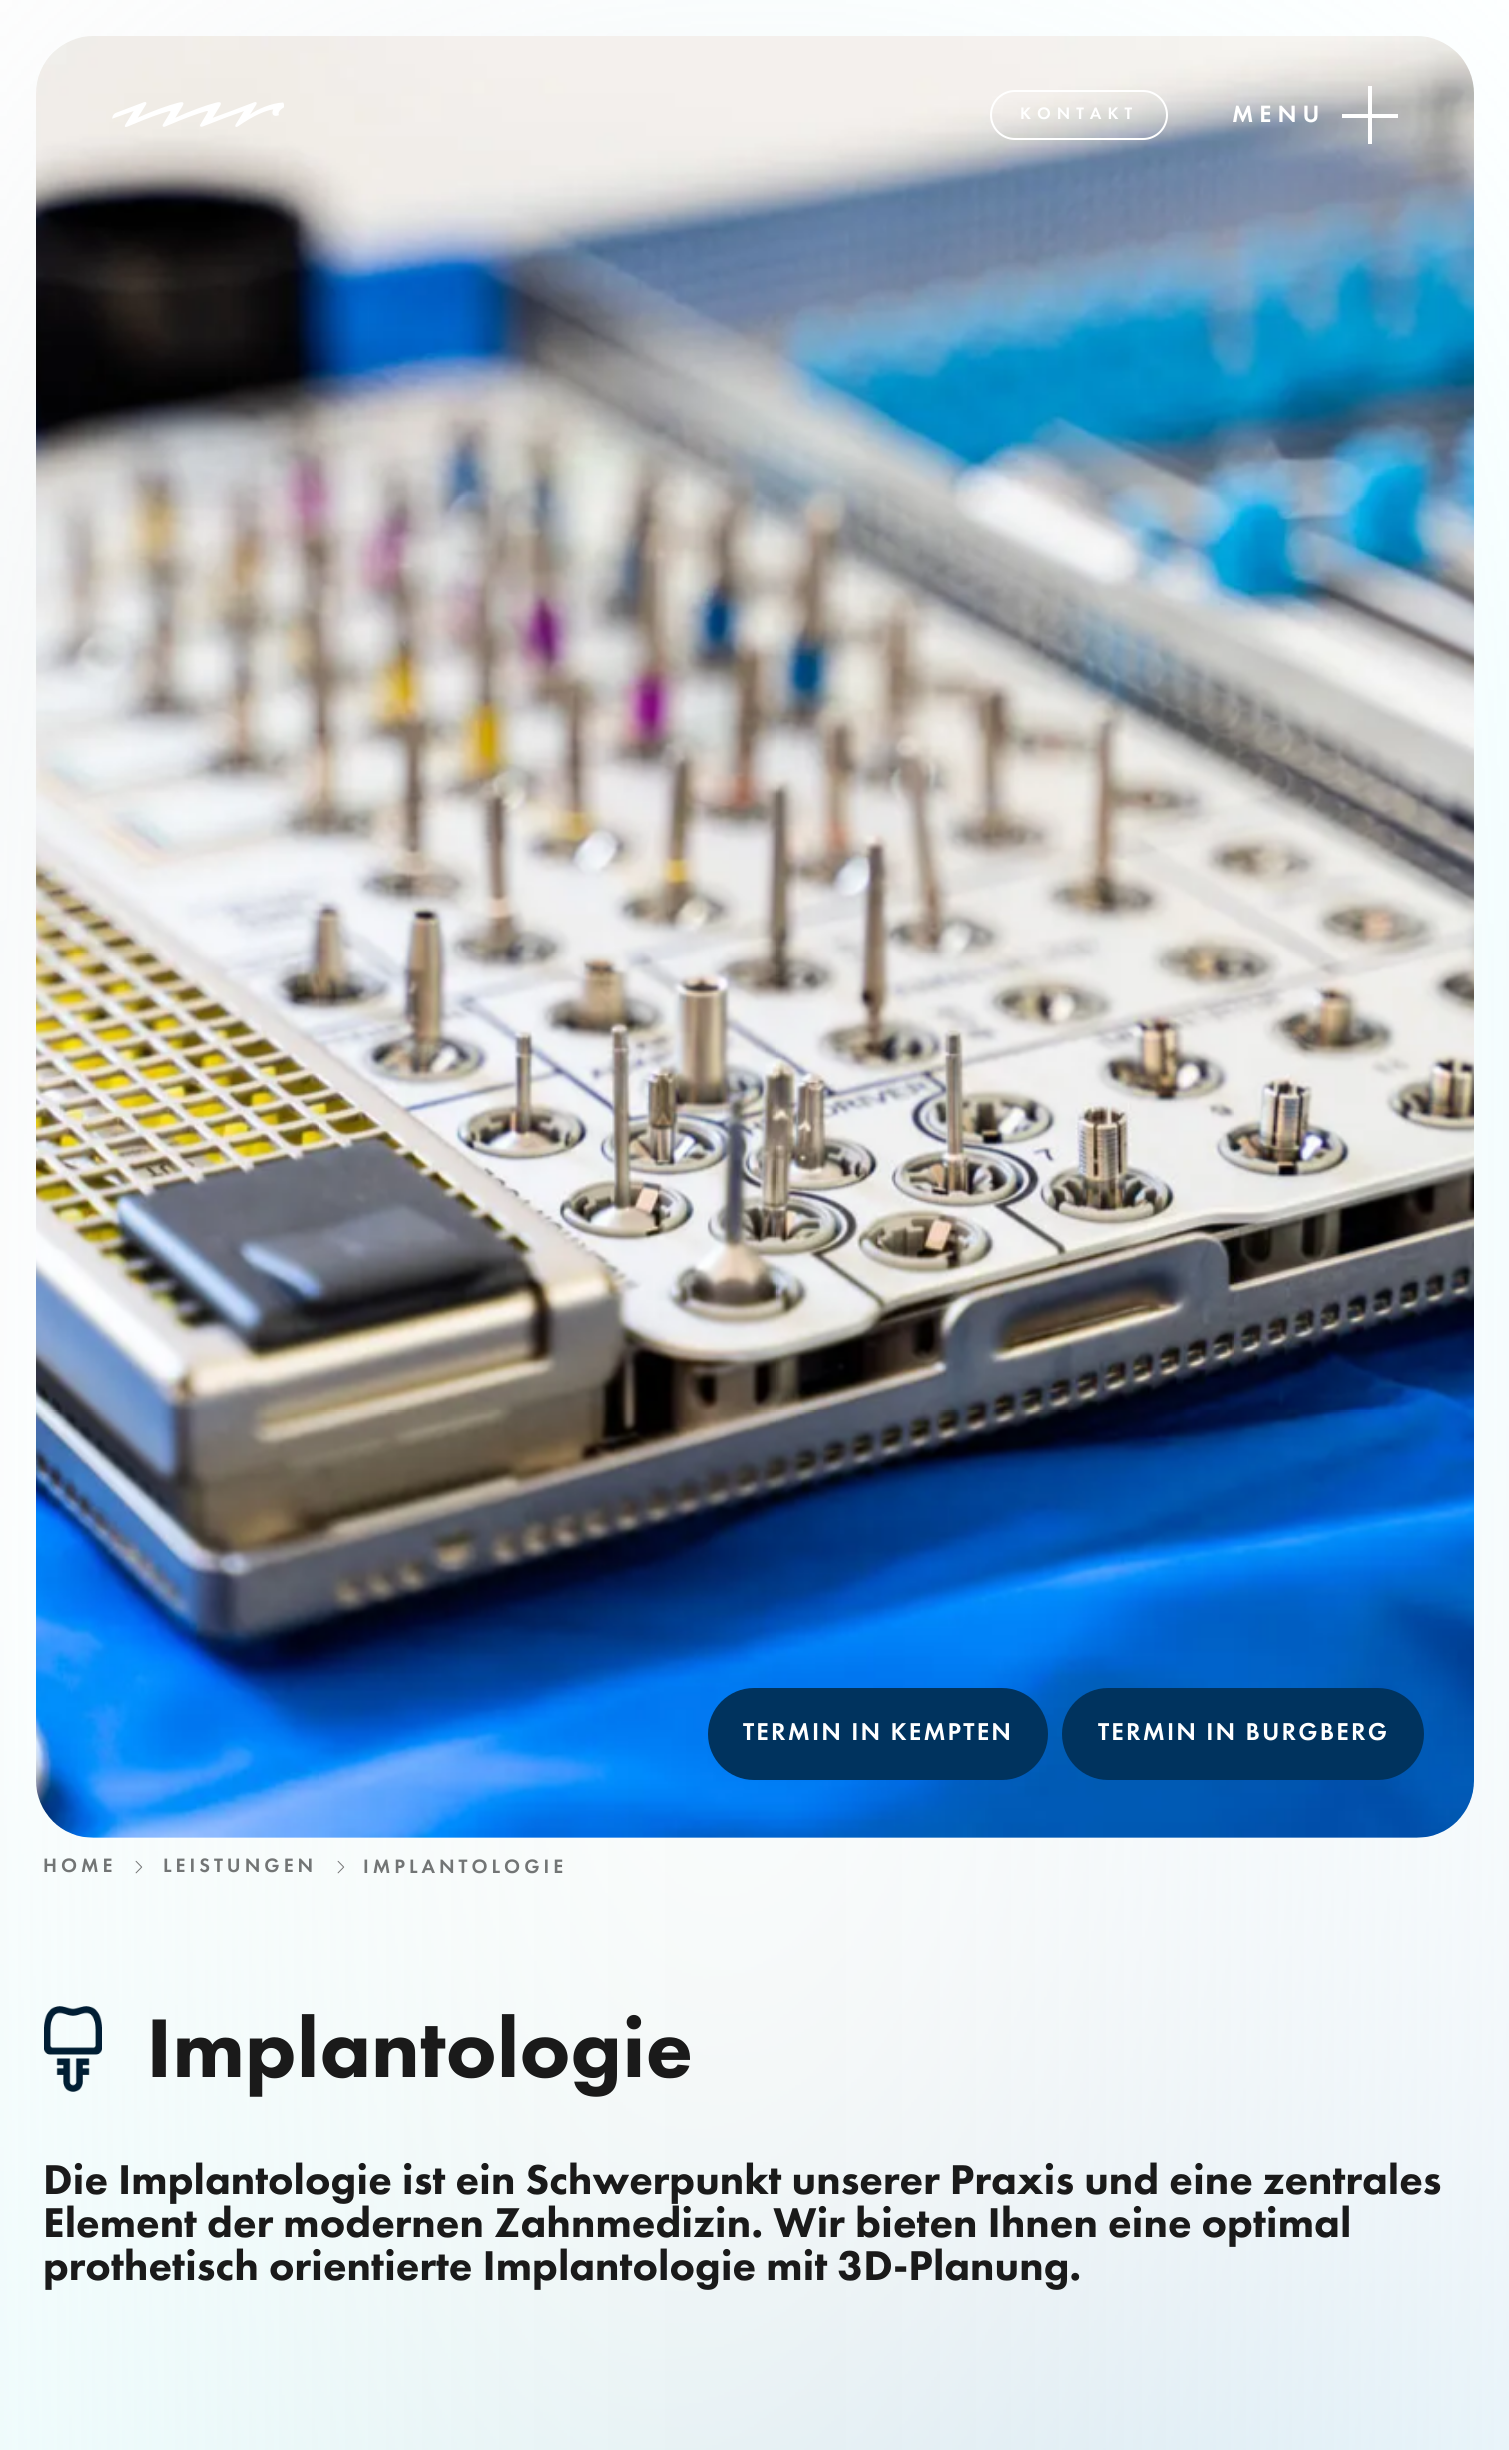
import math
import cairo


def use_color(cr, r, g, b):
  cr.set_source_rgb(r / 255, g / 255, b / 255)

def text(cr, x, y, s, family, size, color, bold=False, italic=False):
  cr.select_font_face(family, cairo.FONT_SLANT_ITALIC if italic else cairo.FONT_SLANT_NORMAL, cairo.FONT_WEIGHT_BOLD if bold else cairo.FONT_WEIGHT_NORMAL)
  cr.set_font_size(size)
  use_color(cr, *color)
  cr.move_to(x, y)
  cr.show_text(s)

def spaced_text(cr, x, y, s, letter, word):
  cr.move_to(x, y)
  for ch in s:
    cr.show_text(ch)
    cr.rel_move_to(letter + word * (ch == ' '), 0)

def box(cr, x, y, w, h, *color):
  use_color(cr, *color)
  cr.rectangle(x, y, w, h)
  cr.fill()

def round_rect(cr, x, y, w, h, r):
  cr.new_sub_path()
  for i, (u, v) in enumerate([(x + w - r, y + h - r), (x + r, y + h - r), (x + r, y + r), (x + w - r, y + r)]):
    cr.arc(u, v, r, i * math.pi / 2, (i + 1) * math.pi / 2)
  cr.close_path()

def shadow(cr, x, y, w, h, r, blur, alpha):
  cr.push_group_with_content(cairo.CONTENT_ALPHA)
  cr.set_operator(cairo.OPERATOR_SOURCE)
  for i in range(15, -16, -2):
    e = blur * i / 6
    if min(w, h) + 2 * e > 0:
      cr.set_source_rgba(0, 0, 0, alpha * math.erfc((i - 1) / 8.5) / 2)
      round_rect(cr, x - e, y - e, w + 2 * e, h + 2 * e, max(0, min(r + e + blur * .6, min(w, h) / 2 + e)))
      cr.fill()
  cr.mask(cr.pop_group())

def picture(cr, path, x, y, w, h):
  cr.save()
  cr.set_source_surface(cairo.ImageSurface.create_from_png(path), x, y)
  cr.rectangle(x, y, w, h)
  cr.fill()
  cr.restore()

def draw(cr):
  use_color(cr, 255, 255, 255)
  cr.paint()
  picture(cr, "img_02.png", 0, 0, 1509, 2450)
  picture(cr, "img_04.png", 135, 1860, 8, 14)
  picture(cr, "img_05.png", 337, 1860, 8, 14)
  shadow(cr, 180, 180, 1150, 1514, 0, 86.5, 1)
  picture(cr, "img_03.png", 36, 36, 1438, 1802)
  picture(cr, "img_01.png", 112, 102, 172, 25)
  round_rect(cr, 991, 91, 176, 48, 24)
  use_color(cr, 255, 255, 255)
  cr.stroke()
  box(cr, 1342, 114, 56, 4, 255, 255, 255)
  box(cr, 1368, 86, 4, 58, 255, 255, 255)
  use_color(cr, 0, 51, 94)
  round_rect(cr, 708, 1688, 340, 92, 46)
  cr.fill()
  round_rect(cr, 1062, 1688, 362, 92, 46)
  cr.fill()
  picture(cr, "img_06.png", 44, 2006, 58, 86)
  cr.select_font_face("Futura PT Medium")
  cr.set_font_size(17.25)
  use_color(cr, 255, 255, 255)
  spaced_text(cr, 1020, 119, "KONTAKT", 6, 0)
  cr.set_font_size(24.5)
  spaced_text(cr, 1232, 122, "MENU", 6, 0)
  cr.set_font_size(25.25)
  spaced_text(cr, 743, 1740, "TERMIN IN KEMPTEN", 2.2, 0)
  spaced_text(cr, 1098, 1740, "TERMIN IN BURGBERG", 2.2, 0)
  cr.set_font_size(20.1)
  use_color(cr, 114, 117, 117)
  spaced_text(cr, 43, 1872, "HOME", 4, 0)
  spaced_text(cr, 163, 1872, "LEISTUNGEN", 4, 0)
  spaced_text(cr, 363, 1873, "IMPLANTOLOGIE", 4, 0)
  text(cr, 146, 2077, "Implantologie", "Futura PT Black", 86.25, (26, 26, 26))
  text(cr, 43, 2194, "Die Implantologie ist ein Schwerpunkt unserer Praxis und eine zentrales", "Futura PT Black", 43.15, (26, 26, 26))
  text(cr, 43, 2237, "Element der modernen Zahnmedizin. Wir bieten Ihnen eine optimal", "Futura PT Black", 43.15, (26, 26, 26))
  text(cr, 43, 2280, "prothetisch orientierte Implantologie mit 3D-Planung.", "Futura PT Black", 43.15, (26, 26, 26))


surface = cairo.ImageSurface(cairo.FORMAT_RGB24, 1509, 2450)
cr = cairo.Context(surface)
options = cairo.FontOptions()
options.set_hint_metrics(cairo.HINT_METRICS_OFF)
options.set_hint_style(cairo.HINT_STYLE_NONE)
cr.set_font_options(options)
cr.set_miter_limit(4)
draw(cr)
surface.write_to_png("out.png")
